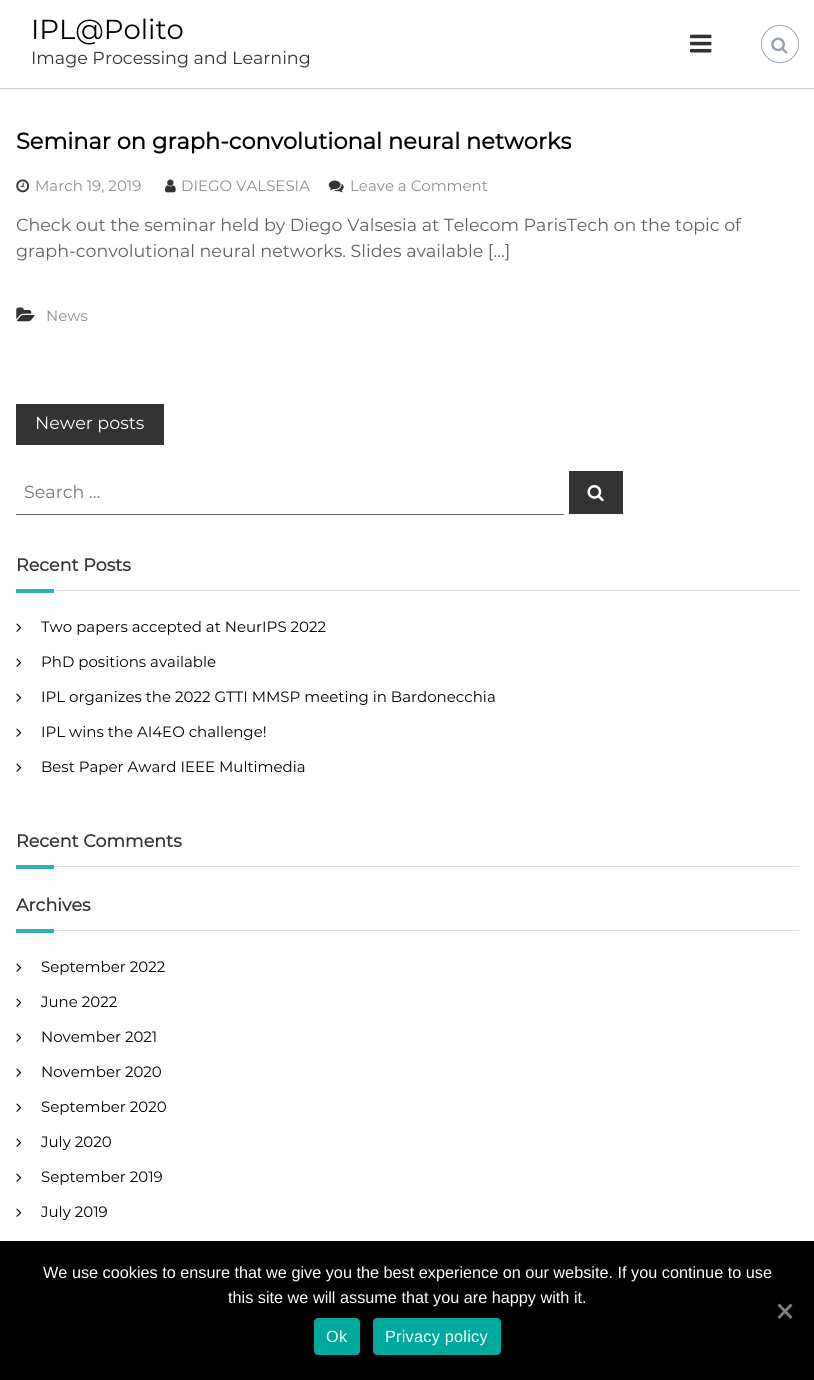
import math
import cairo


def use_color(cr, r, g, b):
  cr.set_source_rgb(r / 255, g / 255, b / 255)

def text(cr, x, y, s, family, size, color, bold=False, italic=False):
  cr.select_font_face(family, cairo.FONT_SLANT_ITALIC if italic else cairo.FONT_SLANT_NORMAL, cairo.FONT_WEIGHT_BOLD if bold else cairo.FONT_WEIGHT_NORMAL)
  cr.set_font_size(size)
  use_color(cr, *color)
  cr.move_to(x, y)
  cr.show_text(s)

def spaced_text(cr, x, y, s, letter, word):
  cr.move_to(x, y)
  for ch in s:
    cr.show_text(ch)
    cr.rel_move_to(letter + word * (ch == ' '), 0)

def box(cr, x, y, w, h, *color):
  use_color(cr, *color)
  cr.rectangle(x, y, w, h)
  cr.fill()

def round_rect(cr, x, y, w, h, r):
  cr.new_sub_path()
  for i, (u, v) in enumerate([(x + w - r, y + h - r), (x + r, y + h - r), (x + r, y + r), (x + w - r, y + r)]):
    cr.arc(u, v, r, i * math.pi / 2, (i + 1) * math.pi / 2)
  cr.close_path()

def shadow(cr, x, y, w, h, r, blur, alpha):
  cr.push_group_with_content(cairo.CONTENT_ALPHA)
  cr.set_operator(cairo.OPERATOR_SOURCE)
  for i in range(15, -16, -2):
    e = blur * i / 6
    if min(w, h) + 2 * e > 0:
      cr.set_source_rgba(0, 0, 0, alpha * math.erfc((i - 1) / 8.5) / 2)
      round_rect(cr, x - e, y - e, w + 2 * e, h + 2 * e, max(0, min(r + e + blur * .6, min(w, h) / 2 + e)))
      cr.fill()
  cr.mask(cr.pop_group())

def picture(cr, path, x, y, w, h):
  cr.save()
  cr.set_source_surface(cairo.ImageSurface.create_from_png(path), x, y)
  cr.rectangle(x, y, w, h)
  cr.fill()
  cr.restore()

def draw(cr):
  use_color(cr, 255, 255, 255)
  cr.paint()
  use_color(cr, 0, 0, 0)
  shadow(cr, 0, 1, 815, 88, 0, 0.5, 0.2)
  box(cr, 0, 0, 814, 88, 255, 255, 255)
  picture(cr, "img_01.png", 690, 34, 22, 19)
  cr.arc(780, 44, 18.5, 0, 2 * math.pi)
  use_color(cr, 156, 166, 178)
  cr.set_line_width(1)
  cr.stroke()
  picture(cr, "img_02.png", 771, 37, 17, 17)
  picture(cr, "img_03.png", 16, 179, 14, 14)
  picture(cr, "img_04.png", 165, 179, 11, 14)
  picture(cr, "img_05.png", 328, 180, 16, 13)
  picture(cr, "img_06.png", 16, 307, 19, 15)
  box(cr, 16, 404, 148, 41, 51, 51, 51)
  box(cr, 16, 514, 548, 1, 102, 102, 102)
  box(cr, 569, 471, 54, 43, 51, 51, 51)
  picture(cr, "img_07.png", 587, 485, 17, 17)
  box(cr, 16, 589, 38, 4, 48, 175, 184)
  box(cr, 54, 590, 745, 1, 225, 225, 225)
  picture(cr, "img_08.png", 16, 623, 6, 9)
  picture(cr, "img_08.png", 16, 658, 6, 9)
  picture(cr, "img_08.png", 16, 693, 6, 9)
  picture(cr, "img_08.png", 16, 728, 6, 9)
  picture(cr, "img_08.png", 16, 763, 6, 9)
  box(cr, 16, 865, 38, 4, 48, 175, 184)
  box(cr, 54, 866, 745, 1, 225, 225, 225)
  box(cr, 16, 929, 38, 4, 48, 175, 184)
  box(cr, 54, 930, 745, 1, 225, 225, 225)
  picture(cr, "img_08.png", 16, 963, 6, 9)
  picture(cr, "img_08.png", 16, 998, 6, 9)
  picture(cr, "img_08.png", 16, 1033, 6, 9)
  picture(cr, "img_08.png", 16, 1068, 6, 9)
  picture(cr, "img_08.png", 16, 1103, 6, 9)
  picture(cr, "img_08.png", 16, 1138, 6, 9)
  picture(cr, "img_08.png", 16, 1173, 6, 9)
  picture(cr, "img_08.png", 16, 1208, 6, 9)
  box(cr, 0, 1241, 814, 139, 0, 0, 0)
  use_color(cr, 128, 128, 128)
  cr.new_path()
  cr.move_to(790.5, 1303.5)
  cr.line_to(792.5, 1305.5)
  cr.line_to(779.5, 1319)
  cr.line_to(777.5, 1317)
  cr.close_path()
  cr.fill()
  cr.new_path()
  cr.move_to(777.5, 1305.5)
  cr.line_to(779.5, 1303.5)
  cr.line_to(792.5, 1317)
  cr.line_to(790.5, 1319)
  cr.close_path()
  cr.fill()
  use_color(cr, 0, 169, 157)
  round_rect(cr, 314, 1318, 46, 37, 4)
  cr.fill()
  round_rect(cr, 373, 1318, 128, 37, 4)
  cr.fill()
  text(cr, 31, 39, "IPL@Polito", "Montserrat", 27.5, (0, 0, 0))
  text(cr, 31, 64, "Image Processing and Learning", "Montserrat", 17.5, (51, 51, 51))
  text(cr, 16, 149, "Seminar on graph-convolutional neural networks", "Montserrat", 22.5, (0, 0, 0), bold=True)
  text(cr, 35, 191, "March 19, 2019", "Montserrat", 15, (142, 142, 142))
  text(cr, 181, 191, "DIEGO VALSESIA", "Montserrat", 15, (142, 142, 142))
  text(cr, 350, 191, "Leave a Comment", "Montserrat", 15, (142, 142, 142))
  text(cr, 16, 231, "Check out the seminar held by Diego Valsesia at Telecom ParisTech on the topic of", "Montserrat", 17.5, (96, 96, 96))
  text(cr, 16, 257, "graph-convolutional neural networks. Slides available […]", "Montserrat", 17.5, (96, 96, 96))
  text(cr, 46, 321, "News", "Montserrat", 15, (142, 142, 142))
  text(cr, 35, 429, "Newer posts", "Montserrat", 17.5, (255, 255, 255))
  text(cr, 24, 498, "Search …", "Montserrat", 17.5, (117, 117, 117))
  text(cr, 16, 571, "Recent Posts", "Montserrat", 17.5, (51, 51, 51), bold=True)
  text(cr, 41, 632, "Two papers accepted at NeurIPS 2022", "Montserrat", 15, (0, 0, 0))
  text(cr, 41, 667, "PhD positions available", "Montserrat", 15, (0, 0, 0))
  text(cr, 41, 702, "IPL organizes the 2022 GTTI MMSP meeting in Bardonecchia", "Montserrat", 15, (0, 0, 0))
  text(cr, 41, 737, "IPL wins the AI4EO challenge!", "Montserrat", 15, (0, 0, 0))
  text(cr, 41, 772, "Best Paper Award IEEE Multimedia", "Montserrat", 15, (0, 0, 0))
  text(cr, 16, 847, "Recent Comments", "Montserrat", 17.5, (51, 51, 51), bold=True)
  text(cr, 16, 911, "Archives", "Montserrat", 17.5, (51, 51, 51), bold=True)
  text(cr, 41, 972, "September 2022", "Montserrat", 15, (0, 0, 0))
  text(cr, 41, 1007, "June 2022", "Montserrat", 15, (0, 0, 0))
  text(cr, 41, 1042, "November 2021", "Montserrat", 15, (0, 0, 0))
  text(cr, 41, 1077, "November 2020", "Montserrat", 15, (0, 0, 0))
  text(cr, 41, 1112, "September 2020", "Montserrat", 15, (0, 0, 0))
  text(cr, 41, 1147, "July 2020", "Montserrat", 15, (0, 0, 0))
  text(cr, 41, 1182, "September 2019", "Montserrat", 15, (0, 0, 0))
  text(cr, 41, 1217, "July 2019", "Montserrat", 15, (0, 0, 0))
  text(cr, 43, 1278, "We use cookies to ensure that we give you the best experience on our website. If you continue to use", "Liberation Sans", 16.25, (255, 255, 255))
  text(cr, 228, 1303, "this site we will assume that you are happy with it.", "Liberation Sans", 16.25, (255, 255, 255))
  spaced_text(cr, 326, 1342, "Ok", 0.25, 0)
  spaced_text(cr, 385, 1342, "Privacy policy", 0.25, 0)


surface = cairo.ImageSurface(cairo.FORMAT_RGB24, 814, 1380)
cr = cairo.Context(surface)
options = cairo.FontOptions()
options.set_hint_metrics(cairo.HINT_METRICS_OFF)
options.set_hint_style(cairo.HINT_STYLE_NONE)
cr.set_font_options(options)
cr.set_miter_limit(4)
draw(cr)
surface.write_to_png("out.png")
